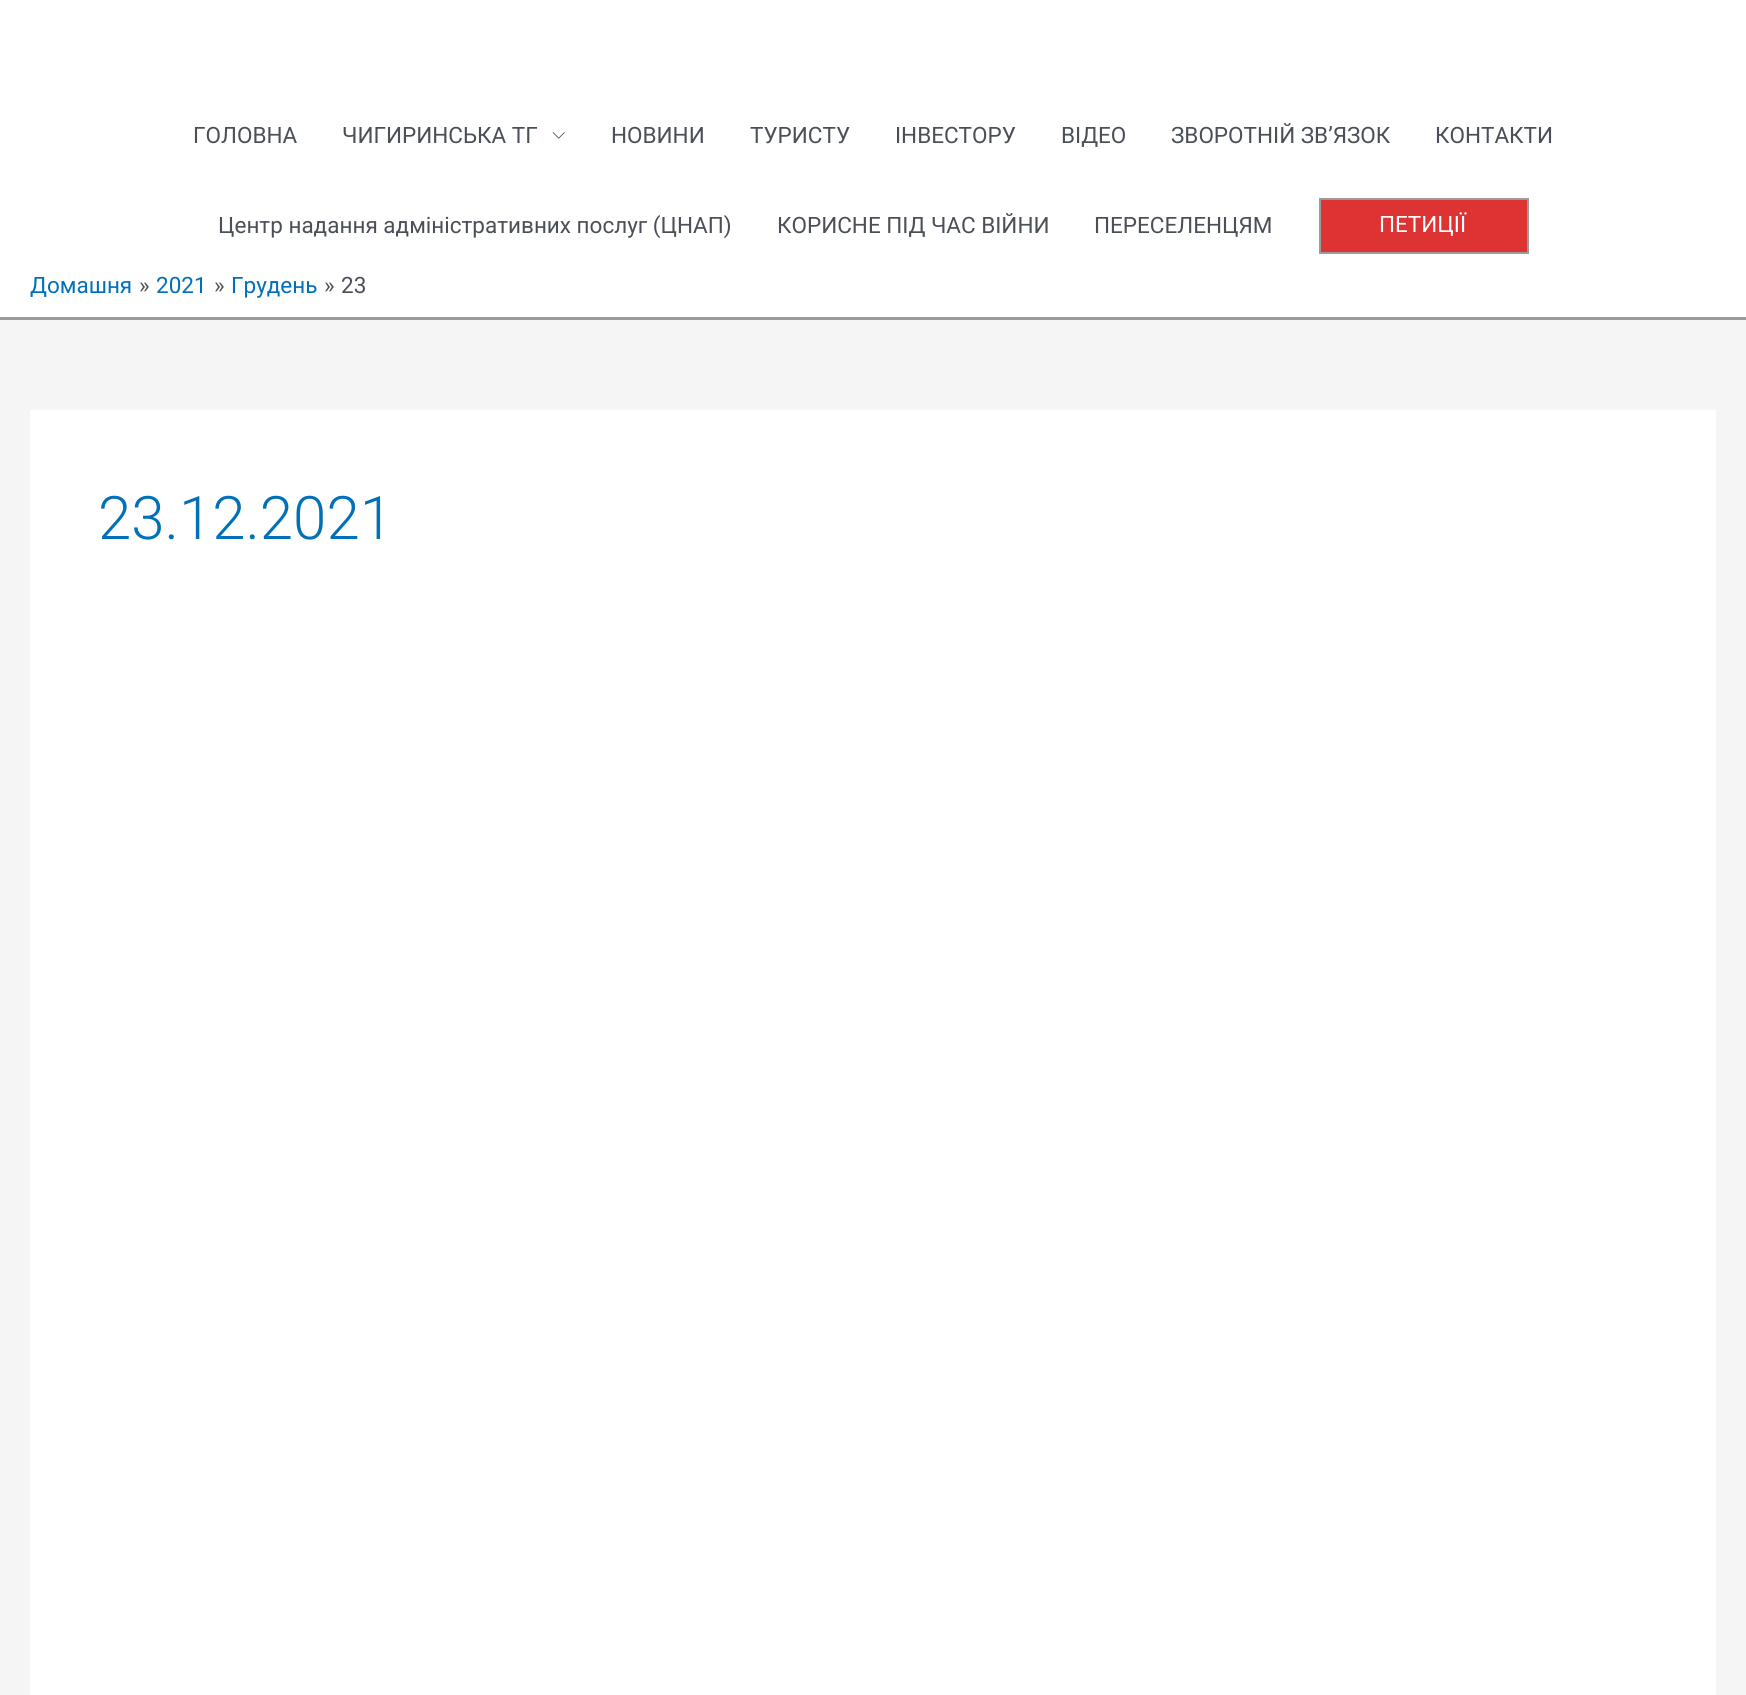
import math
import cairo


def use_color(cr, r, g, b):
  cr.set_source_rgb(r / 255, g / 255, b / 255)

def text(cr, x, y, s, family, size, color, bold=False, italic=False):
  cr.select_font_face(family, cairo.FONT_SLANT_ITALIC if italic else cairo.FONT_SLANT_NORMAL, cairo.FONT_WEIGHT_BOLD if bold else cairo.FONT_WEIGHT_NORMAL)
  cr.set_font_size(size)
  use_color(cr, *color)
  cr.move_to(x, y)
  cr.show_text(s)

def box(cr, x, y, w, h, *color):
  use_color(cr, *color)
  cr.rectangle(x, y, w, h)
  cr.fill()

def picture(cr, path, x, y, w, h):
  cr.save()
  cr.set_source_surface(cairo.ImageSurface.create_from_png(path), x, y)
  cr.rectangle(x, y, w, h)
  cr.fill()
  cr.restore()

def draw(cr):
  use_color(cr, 245, 245, 245)
  cr.paint()
  box(cr, 0, 0, 1746, 317, 255, 255, 255)
  box(cr, 0, 317, 1746, 3, 155, 155, 155)
  picture(cr, "img_01.png", 552, 132, 13, 7)
  use_color(cr, 221, 51, 51)
  cr.rectangle(1320, 199, 208, 54)
  cr.fill_preserve()
  use_color(cr, 155, 155, 155)
  cr.stroke()
  box(cr, 30, 410, 1686, 1285, 255, 255, 255)
  text(cr, 193, 143, "ГОЛОВНА", "Roboto", 22.5, (75, 79, 88))
  text(cr, 342, 143, "ЧИГИРИНСЬКА ТГ", "Roboto", 22.5, (75, 79, 88))
  text(cr, 611, 143, "НОВИНИ", "Roboto", 22.5, (75, 79, 88))
  text(cr, 750, 143, "ТУРИСТУ", "Roboto", 22.5, (75, 79, 88))
  text(cr, 895, 143, "ІНВЕСТОРУ", "Roboto", 22.5, (75, 79, 88))
  text(cr, 1061, 143, "ВІДЕО", "Roboto", 22.5, (75, 79, 88))
  text(cr, 1171, 143, "ЗВОРОТНІЙ ЗВ’ЯЗОК", "Roboto", 22.5, (75, 79, 88))
  text(cr, 1435, 143, "КОНТАКТИ", "Roboto", 22.5, (75, 79, 88))
  text(cr, 218, 233, "Центр надання адміністративних послуг (ЦНАП)", "Roboto", 22.5, (75, 79, 88))
  text(cr, 777, 233, "КОРИСНЕ ПІД ЧАС ВІЙНИ", "Roboto", 22.5, (75, 79, 88))
  text(cr, 1094, 233, "ПЕРЕСЕЛЕНЦЯМ", "Roboto", 22.5, (75, 79, 88))
  text(cr, 1379, 232, "ПЕТИЦІЇ", "Roboto", 22.5, (255, 255, 255))
  text(cr, 30, 293, "Домашня", "Roboto", 22.5, (1, 112, 185))
  text(cr, 139, 293, "»", "Roboto", 22.5, (75, 79, 88))
  text(cr, 156, 293, "2021", "Roboto", 22.5, (1, 112, 185))
  text(cr, 214, 293, "»", "Roboto", 22.5, (75, 79, 88))
  text(cr, 231, 293, "Грудень", "Roboto", 22.5, (1, 112, 185))
  text(cr, 324, 293, "»", "Roboto", 22.5, (75, 79, 88))
  text(cr, 341, 293, "23", "Roboto", 22.5, (75, 79, 88))
  text(cr, 98, 539, "23.12.2021", "Roboto Light", 60, (1, 112, 185))


surface = cairo.ImageSurface(cairo.FORMAT_RGB24, 1746, 1695)
cr = cairo.Context(surface)
options = cairo.FontOptions()
options.set_hint_metrics(cairo.HINT_METRICS_OFF)
options.set_hint_style(cairo.HINT_STYLE_NONE)
cr.set_font_options(options)
cr.set_miter_limit(4)
draw(cr)
surface.write_to_png("out.png")
